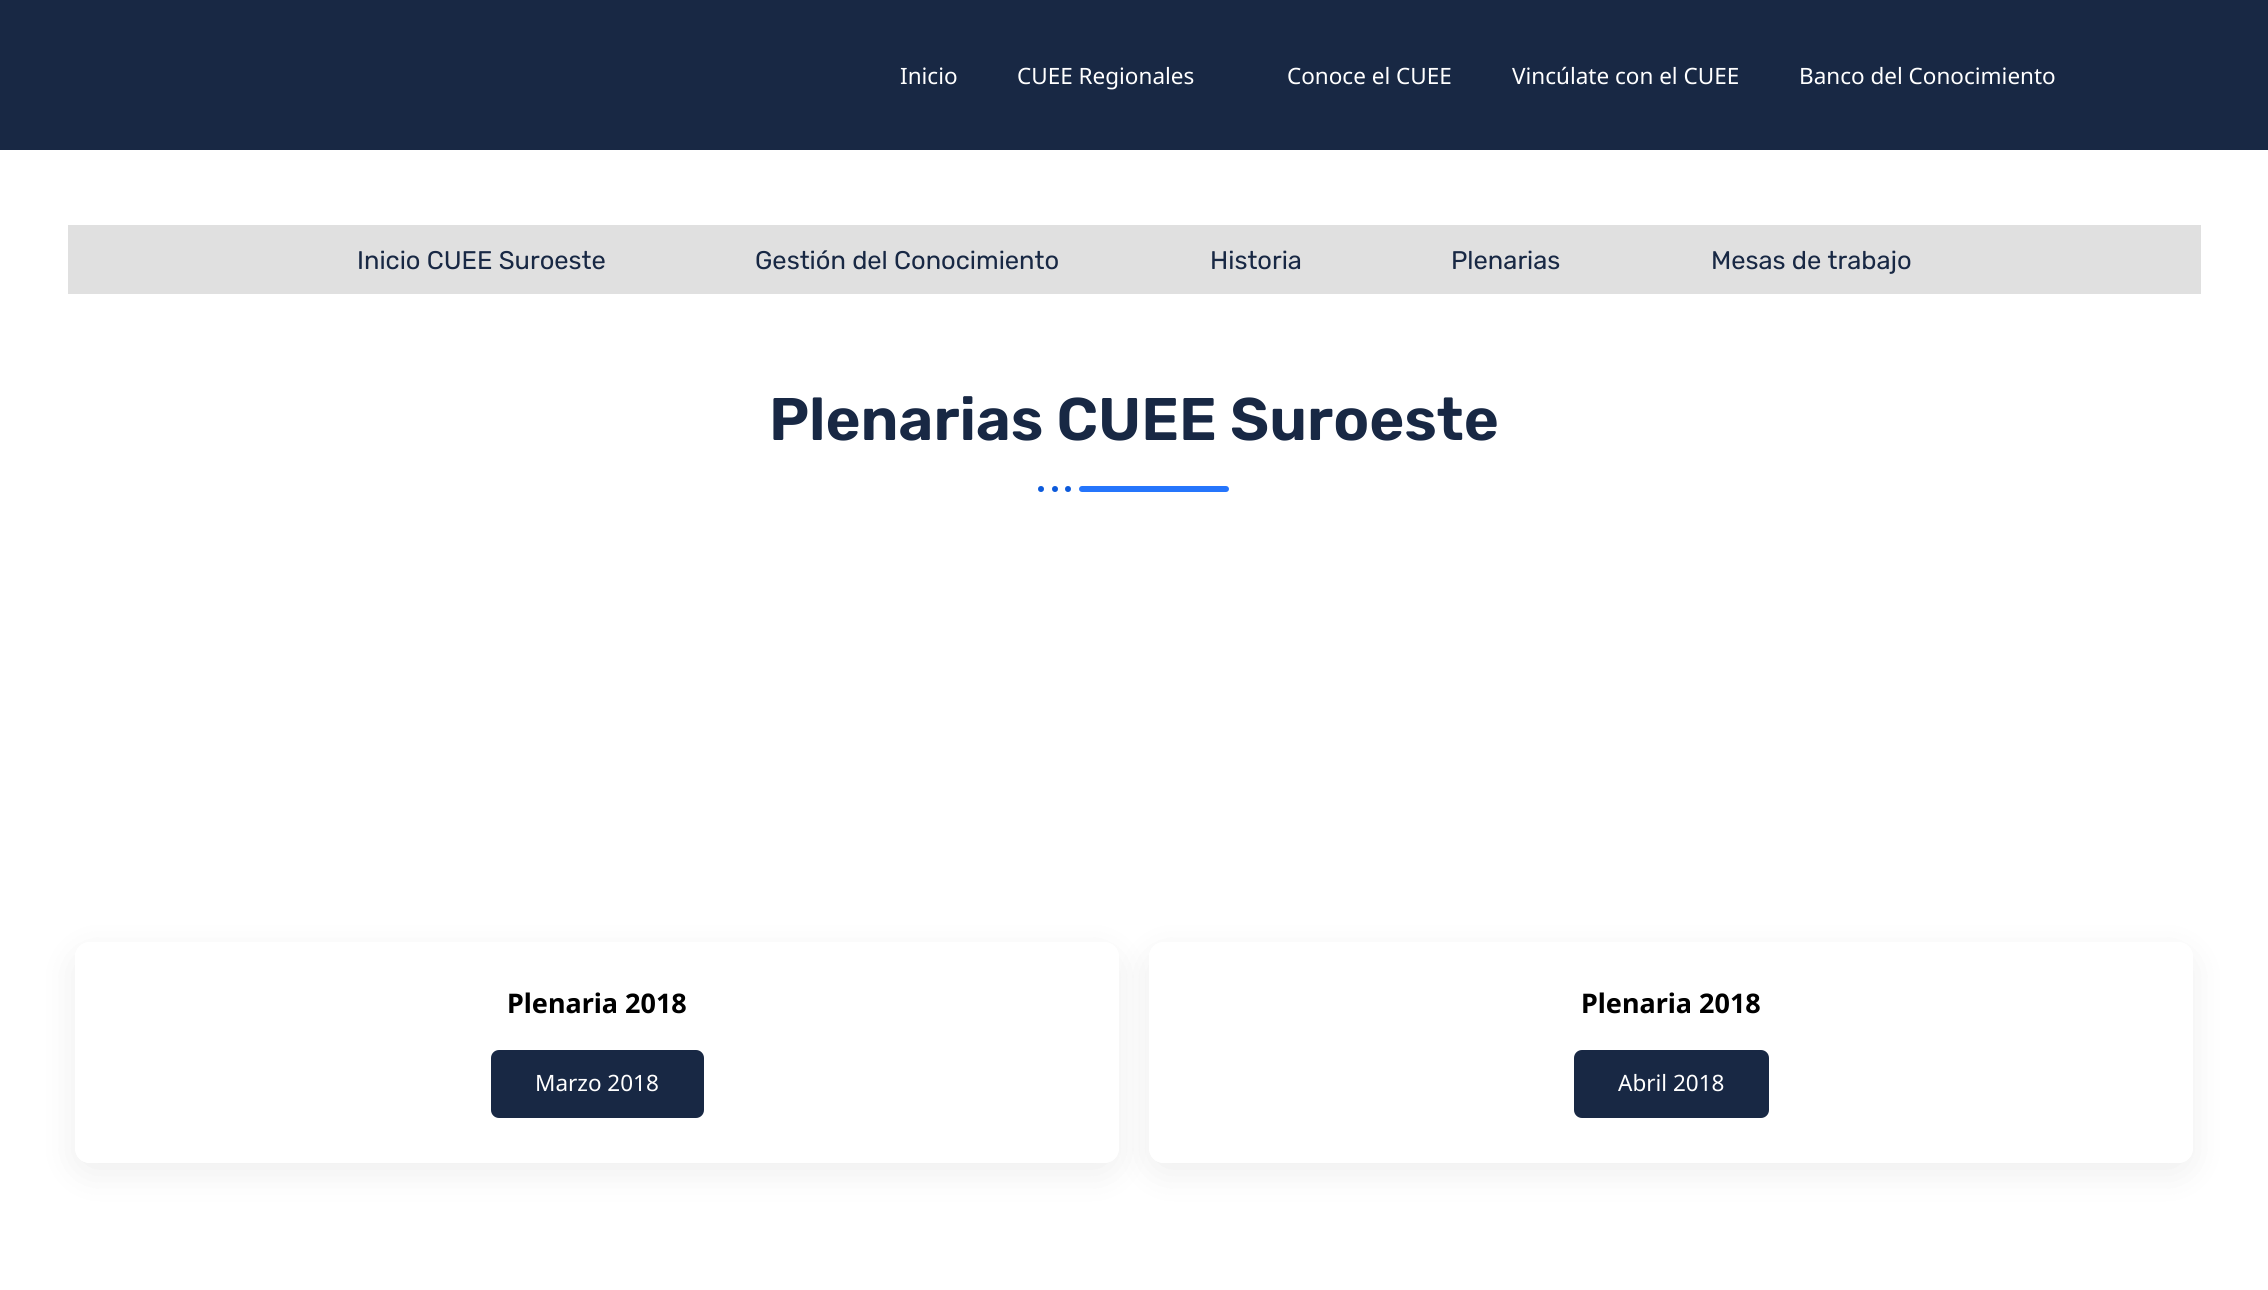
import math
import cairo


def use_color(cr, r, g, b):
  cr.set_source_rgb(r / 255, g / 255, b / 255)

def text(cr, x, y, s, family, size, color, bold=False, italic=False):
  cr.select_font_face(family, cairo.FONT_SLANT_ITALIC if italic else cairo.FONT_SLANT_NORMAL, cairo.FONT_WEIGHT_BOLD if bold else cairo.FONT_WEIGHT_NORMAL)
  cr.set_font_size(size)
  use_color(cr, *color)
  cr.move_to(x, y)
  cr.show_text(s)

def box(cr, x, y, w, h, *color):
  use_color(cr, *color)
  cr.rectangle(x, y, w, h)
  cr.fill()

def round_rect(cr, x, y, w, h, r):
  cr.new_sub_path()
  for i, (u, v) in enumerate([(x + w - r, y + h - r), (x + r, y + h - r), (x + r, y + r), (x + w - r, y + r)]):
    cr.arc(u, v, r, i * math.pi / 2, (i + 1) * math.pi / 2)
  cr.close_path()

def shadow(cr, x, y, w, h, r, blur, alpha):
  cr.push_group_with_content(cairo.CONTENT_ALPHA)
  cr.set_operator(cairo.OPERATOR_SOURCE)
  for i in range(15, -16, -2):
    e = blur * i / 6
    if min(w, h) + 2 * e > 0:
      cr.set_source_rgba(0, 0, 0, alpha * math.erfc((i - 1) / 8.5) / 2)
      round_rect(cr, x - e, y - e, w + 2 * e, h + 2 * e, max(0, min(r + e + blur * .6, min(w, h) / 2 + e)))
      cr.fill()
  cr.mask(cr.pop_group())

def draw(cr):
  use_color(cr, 255, 255, 255)
  cr.paint()
  box(cr, 0, 0, 2268, 150, 24, 40, 68)
  box(cr, 68, 225, 2133, 69, 224, 224, 224)
  use_color(cr, 37, 117, 252)
  round_rect(cr, 1079, 486, 150, 6, 3)
  cr.fill()
  use_color(cr, 12, 90, 219)
  cr.arc(1068, 489, 3, 0, 2 * math.pi)
  cr.fill()
  cr.arc(1055, 489, 3, 0, 2 * math.pi)
  cr.fill()
  cr.arc(1041, 489, 3, 0, 2 * math.pi)
  cr.fill()
  cr.save()
  cr.set_fill_rule(cairo.FILL_RULE_EVEN_ODD)
  cr.new_path()
  cr.move_to(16, 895)
  cr.line_to(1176, 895)
  cr.line_to(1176, 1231)
  cr.line_to(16, 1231)
  cr.close_path()
  cr.move_to(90, 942)
  cr.line_to(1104, 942)
  cr.curve_to(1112.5, 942, 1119, 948.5, 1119, 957)
  cr.line_to(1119, 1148)
  cr.curve_to(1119, 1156.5, 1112.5, 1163, 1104, 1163)
  cr.line_to(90, 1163)
  cr.curve_to(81.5, 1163, 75, 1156.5, 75, 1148)
  cr.line_to(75, 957)
  cr.curve_to(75, 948.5, 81.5, 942, 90, 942)
  cr.close_path()
  cr.clip()
  use_color(cr, 0, 0, 0)
  shadow(cr, 74, 953, 1044, 220, 15, 19, 0.07)
  cr.restore()
  cr.set_source_rgba(1, 1, 1, 0.9)
  round_rect(cr, 75, 942, 1044, 221, 15)
  cr.fill()
  use_color(cr, 24, 40, 68)
  round_rect(cr, 491, 1050, 213, 68, 8)
  cr.fill()
  cr.save()
  cr.set_fill_rule(cairo.FILL_RULE_EVEN_ODD)
  cr.new_path()
  cr.move_to(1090, 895)
  cr.line_to(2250, 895)
  cr.line_to(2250, 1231)
  cr.line_to(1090, 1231)
  cr.close_path()
  cr.move_to(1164, 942)
  cr.line_to(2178, 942)
  cr.curve_to(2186.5, 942, 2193, 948.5, 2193, 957)
  cr.line_to(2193, 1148)
  cr.curve_to(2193, 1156.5, 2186.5, 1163, 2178, 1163)
  cr.line_to(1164, 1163)
  cr.curve_to(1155.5, 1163, 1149, 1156.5, 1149, 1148)
  cr.line_to(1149, 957)
  cr.curve_to(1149, 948.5, 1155.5, 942, 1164, 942)
  cr.close_path()
  cr.clip()
  use_color(cr, 0, 0, 0)
  shadow(cr, 1148, 953, 1044, 220, 15, 19, 0.07)
  cr.restore()
  cr.set_source_rgba(1, 1, 1, 0.9)
  round_rect(cr, 1149, 942, 1044, 221, 15)
  cr.fill()
  use_color(cr, 24, 40, 68)
  round_rect(cr, 1574, 1050, 195, 68, 8)
  cr.fill()
  text(cr, 900, 84, "Inicio", "Noto Sans", 22.5, (255, 255, 255))
  text(cr, 1017, 84, "CUEE Regionales", "Noto Sans", 22.5, (255, 255, 255))
  text(cr, 1287, 84, "Conoce el CUEE", "Noto Sans", 22.5, (255, 255, 255))
  text(cr, 1512, 84, "Vincúlate con el CUEE", "Noto Sans", 22.5, (255, 255, 255))
  text(cr, 1799, 84, "Banco del Conocimiento", "Noto Sans", 22.5, (255, 255, 255))
  text(cr, 357, 269, "Inicio CUEE Suroeste", "Rubik", 25.5, (24, 40, 68))
  text(cr, 755, 269, "Gestión del Conocimiento", "Rubik", 25.5, (24, 40, 68))
  text(cr, 1210, 269, "Historia", "Rubik", 25.5, (24, 40, 68))
  text(cr, 1451, 269, "Plenarias", "Rubik", 25.5, (24, 40, 68))
  text(cr, 1711, 269, "Mesas de trabajo", "Rubik", 25.5, (24, 40, 68))
  text(cr, 769, 440, "Plenarias CUEE Suroeste", "Rubik SemiBold", 60, (24, 40, 68))
  text(cr, 507, 1013, "Plenaria 2018", "Noto Sans", 27, (0, 0, 0), bold=True)
  text(cr, 535, 1091, "Marzo 2018", "Noto Sans", 22.5, (255, 255, 255))
  text(cr, 1581, 1013, "Plenaria 2018", "Noto Sans", 27, (0, 0, 0), bold=True)
  text(cr, 1618, 1091, "Abril 2018", "Noto Sans", 22.5, (255, 255, 255))


surface = cairo.ImageSurface(cairo.FORMAT_RGB24, 2268, 1290)
cr = cairo.Context(surface)
options = cairo.FontOptions()
options.set_hint_metrics(cairo.HINT_METRICS_OFF)
options.set_hint_style(cairo.HINT_STYLE_NONE)
cr.set_font_options(options)
cr.set_miter_limit(4)
draw(cr)
surface.write_to_png("out.png")
